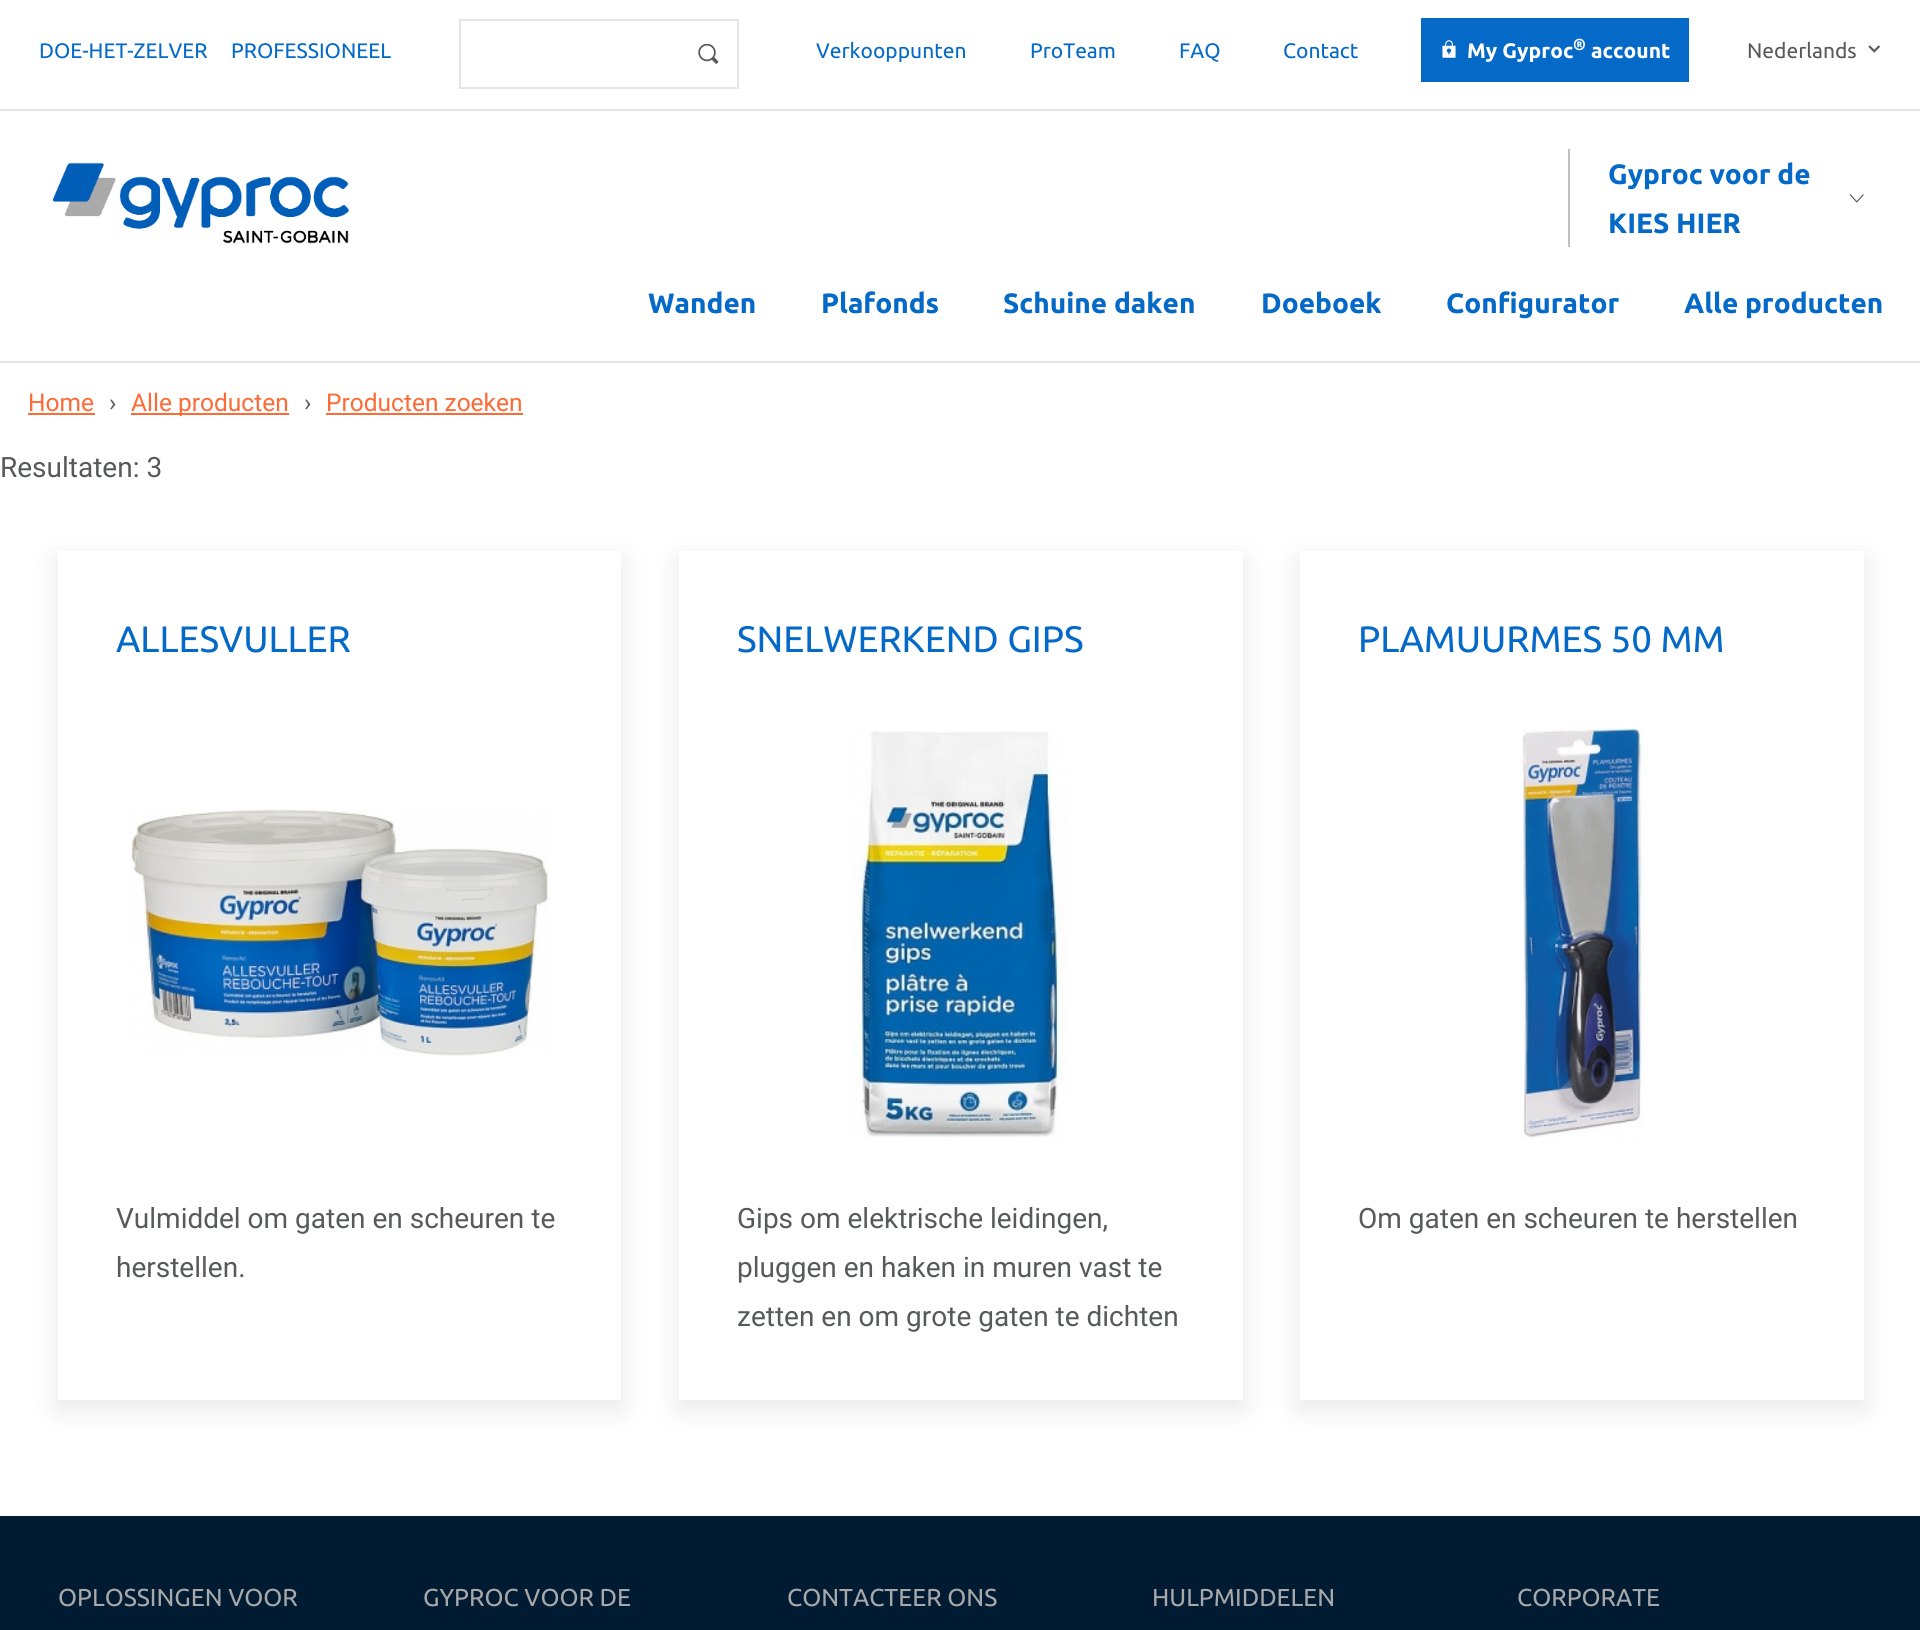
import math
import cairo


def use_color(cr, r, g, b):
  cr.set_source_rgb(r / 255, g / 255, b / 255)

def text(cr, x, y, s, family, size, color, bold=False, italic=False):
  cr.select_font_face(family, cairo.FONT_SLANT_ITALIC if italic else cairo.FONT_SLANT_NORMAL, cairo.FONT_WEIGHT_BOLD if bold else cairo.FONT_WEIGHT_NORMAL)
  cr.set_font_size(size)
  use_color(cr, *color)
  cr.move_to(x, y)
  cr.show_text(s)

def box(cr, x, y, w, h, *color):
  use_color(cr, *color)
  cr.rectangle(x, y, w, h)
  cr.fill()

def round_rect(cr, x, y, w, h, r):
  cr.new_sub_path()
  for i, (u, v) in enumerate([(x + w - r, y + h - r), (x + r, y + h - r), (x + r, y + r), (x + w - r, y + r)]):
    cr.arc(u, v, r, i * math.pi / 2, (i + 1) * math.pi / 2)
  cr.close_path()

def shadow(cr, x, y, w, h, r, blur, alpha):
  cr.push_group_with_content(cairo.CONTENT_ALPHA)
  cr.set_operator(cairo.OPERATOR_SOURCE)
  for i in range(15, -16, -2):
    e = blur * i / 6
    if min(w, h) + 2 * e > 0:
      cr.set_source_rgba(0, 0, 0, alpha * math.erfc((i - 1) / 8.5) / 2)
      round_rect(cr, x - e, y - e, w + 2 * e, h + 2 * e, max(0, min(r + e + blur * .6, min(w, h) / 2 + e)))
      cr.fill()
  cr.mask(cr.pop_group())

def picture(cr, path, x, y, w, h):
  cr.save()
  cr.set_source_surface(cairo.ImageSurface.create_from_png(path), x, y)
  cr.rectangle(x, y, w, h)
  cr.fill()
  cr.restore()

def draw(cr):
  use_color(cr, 255, 255, 255)
  cr.paint()
  box(cr, 0, 109, 1920, 2, 229, 229, 230)
  cr.rectangle(460, 20, 278, 68)
  cr.stroke()
  picture(cr, "img_01.png", 698, 44, 21, 20)
  box(cr, 1421, 18, 268, 64, 5, 105, 200)
  picture(cr, "img_02.png", 1442, 40, 14, 18)
  picture(cr, "img_03.png", 1868, 45, 12, 8)
  picture(cr, "img_04.png", 52, 162, 297, 82)
  box(cr, 1568, 149, 2, 98, 190, 191, 192)
  picture(cr, "img_05.png", 1849, 194, 15, 9)
  box(cr, 0, 361, 1920, 2, 229, 229, 230)
  box(cr, 28, 413, 67, 2, 252, 106, 54)
  box(cr, 131, 413, 158, 2, 252, 106, 54)
  box(cr, 326, 413, 197, 2, 252, 106, 54)
  cr.save()
  cr.set_fill_rule(cairo.FILL_RULE_EVEN_ODD)
  cr.new_path()
  cr.move_to(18, 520)
  cr.line_to(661, 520)
  cr.line_to(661, 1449)
  cr.line_to(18, 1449)
  cr.close_path()
  cr.move_to(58, 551)
  cr.line_to(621, 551)
  cr.line_to(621, 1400)
  cr.line_to(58, 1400)
  cr.close_path()
  cr.clip()
  use_color(cr, 13, 13, 13)
  shadow(cr, 58, 560, 563, 849, 0, 13, 0.1)
  cr.restore()
  picture(cr, "img_06.png", 130, 809, 419, 247)
  use_color(cr, 13, 13, 13)
  shadow(cr, 679, 560, 564, 849, 0, 13, 0.1)
  box(cr, 679, 551, 564, 849, 255, 255, 255)
  picture(cr, "img_07.png", 853, 731, 214, 407)
  use_color(cr, 13, 13, 13)
  shadow(cr, 1300, 560, 564, 849, 0, 13, 0.1)
  box(cr, 1300, 551, 564, 849, 255, 255, 255)
  picture(cr, "img_08.png", 1522, 728, 122, 410)
  box(cr, 0, 1516, 1920, 114, 1, 27, 50)
  text(cr, 39, 58, "DOE-HET-ZELVER", "Ubuntu", 21, (5, 105, 200))
  text(cr, 231, 58, "PROFESSIONEEL", "Ubuntu", 21, (5, 105, 200))
  text(cr, 816, 58, "Verkooppunten", "Ubuntu", 21, (5, 105, 200))
  text(cr, 1030, 58, "ProTeam", "Ubuntu", 21, (5, 105, 200))
  text(cr, 1179, 58, "FAQ", "Ubuntu", 21, (5, 105, 200))
  text(cr, 1283, 58, "Contact", "Ubuntu", 21, (5, 105, 200))
  text(cr, 1467, 58, "My Gyproc", "Ubuntu", 21, (255, 255, 255), bold=True)
  text(cr, 1573, 50, "®", "Ubuntu", 16, (255, 255, 255), bold=True)
  text(cr, 1591, 58, "account", "Ubuntu", 21, (255, 255, 255), bold=True)
  text(cr, 1747, 58, "Nederlands", "Ubuntu", 21, (88, 89, 91))
  text(cr, 1608, 184, "Gyproc voor de", "Ubuntu", 28, (5, 105, 200), bold=True)
  text(cr, 1608, 233, "KIES HIER", "Ubuntu", 28, (5, 105, 200), bold=True)
  text(cr, 648, 313, "Wanden", "Ubuntu", 28, (5, 105, 200), bold=True)
  text(cr, 821, 313, "Plafonds", "Ubuntu", 28, (5, 105, 200), bold=True)
  text(cr, 1003, 313, "Schuine daken", "Ubuntu", 28, (5, 105, 200), bold=True)
  text(cr, 1261, 313, "Doeboek", "Ubuntu", 28, (5, 105, 200), bold=True)
  text(cr, 1446, 313, "Configurator", "Ubuntu", 28, (5, 105, 200), bold=True)
  text(cr, 1684, 313, "Alle producten", "Ubuntu", 28, (5, 105, 200), bold=True)
  text(cr, 28, 411, "Home", "Roboto", 24.5, (252, 106, 54))
  text(cr, 109, 411, "›", "Roboto", 24.5, (88, 89, 91))
  text(cr, 131, 411, "Alle producten", "Roboto", 24.5, (252, 106, 54))
  text(cr, 304, 411, "›", "Roboto", 24.5, (88, 89, 91))
  text(cr, 326, 411, "Producten zoeken", "Roboto", 24.5, (252, 106, 54))
  text(cr, 0, 477, "Resultaten: 3", "Roboto", 28, (88, 89, 91))
  text(cr, 116, 652, "ALLESVULLER", "Ubuntu", 36.75, (5, 105, 200))
  text(cr, 116, 1228, "Vulmiddel om gaten en scheuren te", "Roboto", 28, (88, 89, 91))
  text(cr, 116, 1277, "herstellen.", "Roboto", 28, (88, 89, 91))
  text(cr, 737, 652, "SNELWERKEND GIPS", "Ubuntu", 36.75, (5, 105, 200))
  text(cr, 737, 1228, "Gips om elektrische leidingen,", "Roboto", 28, (88, 89, 91))
  text(cr, 737, 1277, "pluggen en haken in muren vast te", "Roboto", 28, (88, 89, 91))
  text(cr, 737, 1326, "zetten en om grote gaten te dichten", "Roboto", 28, (88, 89, 91))
  text(cr, 1358, 652, "PLAMUURMES 50 MM", "Ubuntu", 36.75, (5, 105, 200))
  text(cr, 1358, 1228, "Om gaten en scheuren te herstellen", "Roboto", 28, (88, 89, 91))
  text(cr, 58, 1606, "OPLOSSINGEN VOOR", "Ubuntu", 24.5, (167, 168, 170))
  text(cr, 423, 1606, "GYPROC VOOR DE", "Ubuntu", 24.5, (167, 168, 170))
  text(cr, 787, 1606, "CONTACTEER ONS", "Ubuntu", 24.5, (167, 168, 170))
  text(cr, 1152, 1606, "HULPMIDDELEN", "Ubuntu", 24.5, (167, 168, 170))
  text(cr, 1517, 1606, "CORPORATE", "Ubuntu", 24.5, (167, 168, 170))


surface = cairo.ImageSurface(cairo.FORMAT_RGB24, 1920, 1630)
cr = cairo.Context(surface)
options = cairo.FontOptions()
options.set_hint_metrics(cairo.HINT_METRICS_OFF)
options.set_hint_style(cairo.HINT_STYLE_NONE)
cr.set_font_options(options)
cr.set_miter_limit(4)
draw(cr)
surface.write_to_png("out.png")
